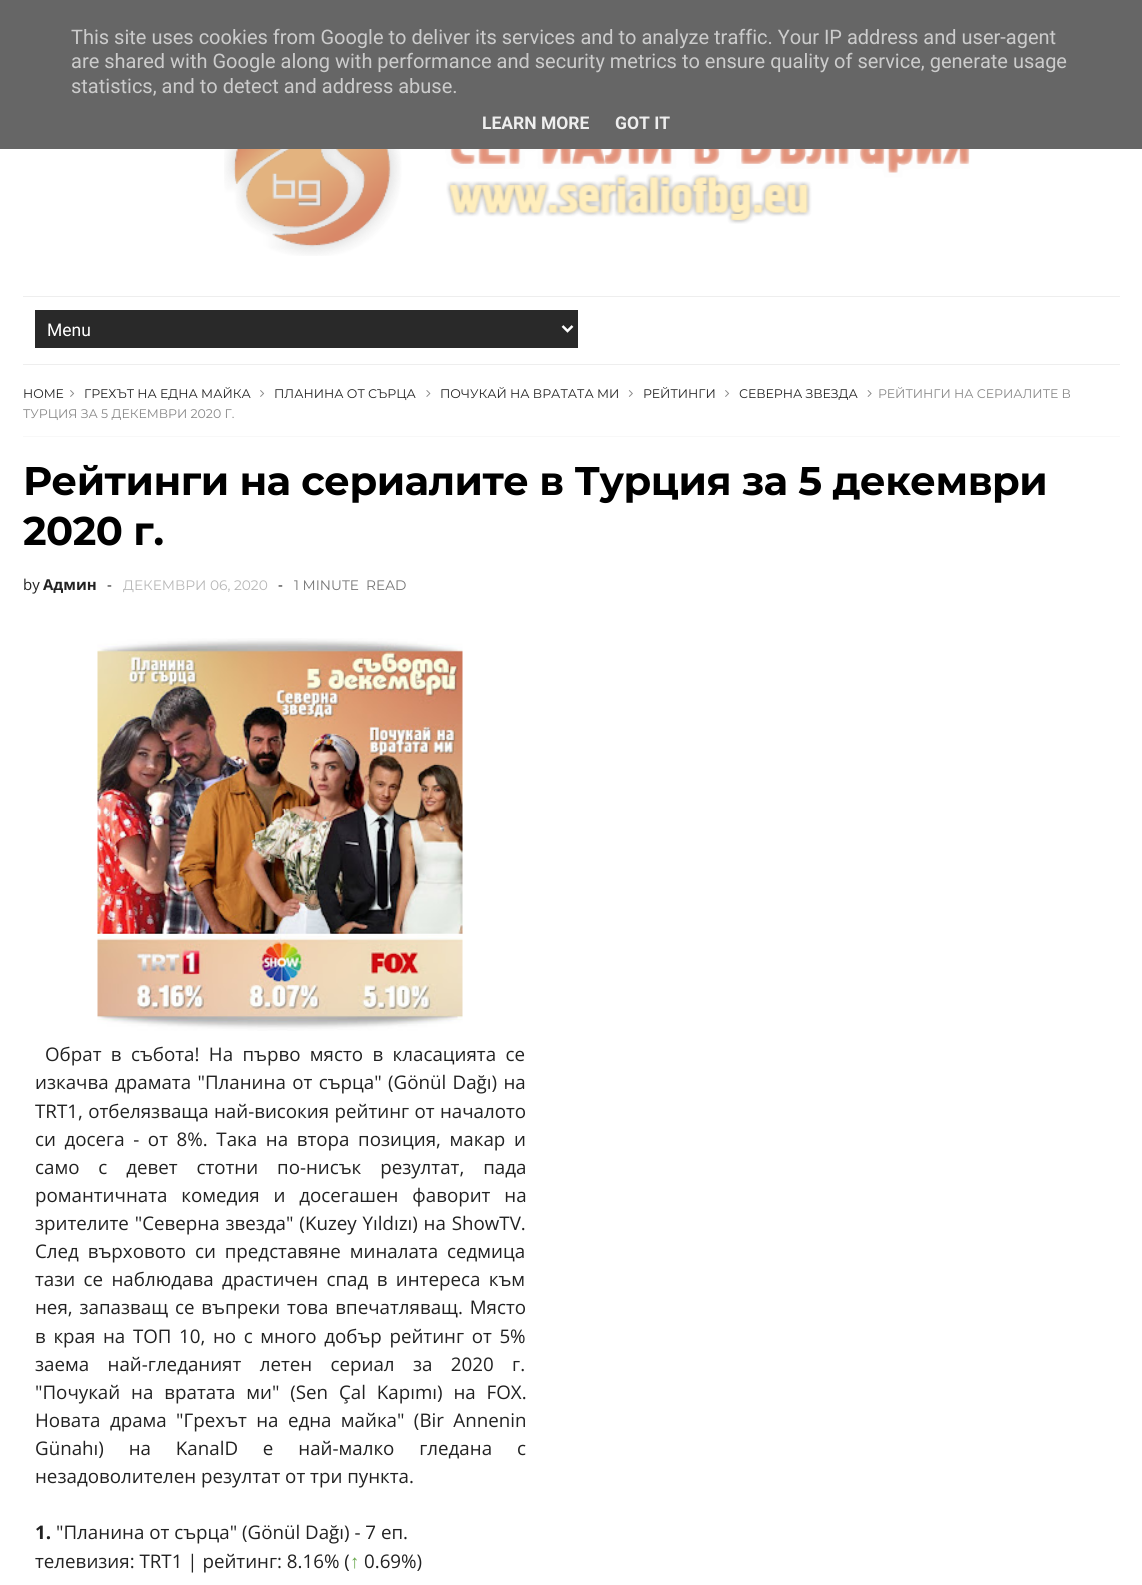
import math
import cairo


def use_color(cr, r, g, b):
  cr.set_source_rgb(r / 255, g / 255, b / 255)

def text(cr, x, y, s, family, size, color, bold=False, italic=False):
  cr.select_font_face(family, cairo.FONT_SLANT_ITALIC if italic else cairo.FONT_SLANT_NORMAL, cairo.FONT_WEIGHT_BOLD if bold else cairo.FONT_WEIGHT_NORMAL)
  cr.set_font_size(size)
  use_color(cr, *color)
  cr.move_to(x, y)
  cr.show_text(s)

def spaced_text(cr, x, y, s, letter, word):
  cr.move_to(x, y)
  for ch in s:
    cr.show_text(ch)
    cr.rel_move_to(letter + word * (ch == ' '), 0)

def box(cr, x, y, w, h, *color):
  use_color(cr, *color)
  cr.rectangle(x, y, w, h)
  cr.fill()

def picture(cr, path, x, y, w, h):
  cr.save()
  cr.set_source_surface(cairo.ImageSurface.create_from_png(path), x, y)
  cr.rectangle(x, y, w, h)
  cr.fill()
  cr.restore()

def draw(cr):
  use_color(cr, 255, 255, 255)
  cr.paint()
  box(cr, 0, 0, 1142, 149, 102, 102, 102)
  picture(cr, "img_01.png", 224, 149, 746, 107)
  box(cr, 23, 296, 1097, 1, 238, 238, 238)
  box(cr, 23, 364, 1097, 1, 238, 238, 238)
  box(cr, 35, 310, 543, 38, 41, 41, 41)
  cr.new_path()
  cr.move_to(562.5, 326)
  cr.line_to(567.5, 331)
  cr.line_to(572.5, 326)
  use_color(cr, 255, 255, 255)
  cr.set_line_width(2.5)
  cr.stroke()
  picture(cr, "img_02.png", 70, 390, 5, 7)
  picture(cr, "img_02.png", 260, 390, 5, 7)
  picture(cr, "img_03.png", 426, 390, 5, 7)
  picture(cr, "img_04.png", 628, 390, 5, 7)
  picture(cr, "img_02.png", 725, 390, 5, 7)
  picture(cr, "img_05.png", 867, 390, 5, 7)
  box(cr, 23, 436, 1097, 1, 248, 248, 248)
  picture(cr, "img_06.png", 97, 638, 366, 393)
  text(cr, 71, 44, "This site uses cookies from Google to deliver its services and to analyze traffic. Your IP address and user-agent", "Roboto", 20, (204, 204, 204))
  text(cr, 71, 68, "are shared with Google along with performance and security metrics to ensure quality of service, generate usage", "Roboto", 20, (204, 204, 204))
  text(cr, 71, 93, "statistics, and to detect and address abuse.", "Roboto", 20, (204, 204, 204))
  text(cr, 482, 129, "LEARN MORE", "Roboto", 17.5, (238, 238, 238), bold=True)
  text(cr, 615, 129, "GOT IT", "Roboto", 17.5, (238, 238, 238), bold=True)
  text(cr, 47, 336, "Menu", "Roboto", 17.5, (255, 255, 255))
  text(cr, 23, 398, "HOME", "Montserrat", 12.5, (34, 34, 34))
  text(cr, 84, 398, "ГРЕХЪТ НА ЕДНА МАЙКА", "Montserrat", 12.5, (34, 34, 34))
  text(cr, 274, 398, "ПЛАНИНА ОТ СЪРЦА", "Montserrat", 12.5, (34, 34, 34))
  text(cr, 440, 398, "ПОЧУКАЙ НА ВРАТАТА МИ", "Montserrat", 12.5, (34, 34, 34))
  text(cr, 643, 398, "РЕЙТИНГИ", "Montserrat", 12.5, (34, 34, 34))
  text(cr, 739, 398, "СЕВЕРНА ЗВЕЗДА", "Montserrat", 12.5, (34, 34, 34))
  text(cr, 878, 398, "РЕЙТИНГИ НА СЕРИАЛИТЕ В", "Montserrat", 12.5, (136, 136, 136))
  text(cr, 23, 418, "ТУРЦИЯ ЗА 5 ДЕКЕМВРИ 2020 Г.", "Montserrat", 12.5, (136, 136, 136))
  cr.select_font_face("Montserrat", cairo.FONT_SLANT_NORMAL, cairo.FONT_WEIGHT_BOLD)
  cr.set_font_size(40)
  use_color(cr, 0, 0, 0)
  spaced_text(cr, 23, 495, "Рейтинги на сериалите в Турция за 5 декември", -0.5, 0)
  spaced_text(cr, 23, 545, "2020 г.", -0.5, 0)
  text(cr, 23, 590, "by", "Open Sans", 15, (34, 34, 34))
  text(cr, 43, 590, "Админ", "Open Sans", 15, (34, 34, 34), bold=True)
  text(cr, 107, 590, "-", "Open Sans", 15, (34, 34, 34))
  text(cr, 123, 590, "ДЕКЕМВРИ 06, 2020", "Montserrat", 13.75, (183, 183, 183))
  text(cr, 278, 590, "-", "Open Sans", 15, (34, 34, 34))
  text(cr, 294, 590, "1 MINUTE", "Montserrat", 13.75, (117, 117, 117))
  text(cr, 366, 590, "READ", "Montserrat", 13.75, (117, 117, 117))
  cr.select_font_face("Open Sans")
  cr.set_font_size(18.75)
  use_color(cr, 34, 34, 34)
  spaced_text(cr, 45, 1061, "Обрат в събота! На първо място в класацията се", 0, 4.5)
  spaced_text(cr, 35, 1089, "изкачва драмата \"Планина от сърца\" (Gönül Dağı) на", 0, 1.5)
  spaced_text(cr, 35, 1118, "TRT1, отбелязваща най-високия рейтинг от началото", 0, 0.5)
  spaced_text(cr, 35, 1146, "си досега - от 8%. Така на втора позиция, макар и", 0, 3.75)
  spaced_text(cr, 35, 1174, "само с девет стотни по-нисък резултат, пада", 0, 14)
  spaced_text(cr, 35, 1202, "романтичната комедия и досегашен фаворит на", 0, 9)
  spaced_text(cr, 35, 1230, "зрителите \"Северна звезда\" (Kuzey Yıldızı) на ShowTV.", 0, 1)
  spaced_text(cr, 35, 1258, "След върховото си представяне миналата седмица", 0, 4)
  spaced_text(cr, 35, 1286, "тази се наблюдава драстичен спад в интереса към", 0, 3.5)
  spaced_text(cr, 35, 1314, "нея, запазващ се въпреки това впечатляващ. Място", 0, 2)
  spaced_text(cr, 35, 1343, "в края на ТОП 10, но с много добър рейтинг от 5%", 0, 2.75)
  spaced_text(cr, 35, 1371, "заема най-гледаният летен сериал за 2020 г.", 0, 13.5)
  spaced_text(cr, 35, 1399, "\"Почукай на вратата ми\" (Sen Çal Kapımı) на FOX.", 0, 6)
  spaced_text(cr, 35, 1427, "Новата драма \"Грехът на една майка\" (Bir Annenin", 0, 4.5)
  spaced_text(cr, 35, 1455, "Günahı) на KanalD е най-малко гледана с", 0, 20)
  text(cr, 35, 1483, "незадоволителен резултат от три пункта.", "Open Sans", 18.75, (34, 34, 34))
  text(cr, 35, 1539, "1.", "Open Sans", 18.75, (34, 34, 34), bold=True)
  text(cr, 56, 1539, "\"Планина от сърца\" (Gönül Dağı) - 7 еп.", "Open Sans", 18.75, (34, 34, 34))
  text(cr, 35, 1568, "телевизия: TRT1 | рейтинг: 8.16% (", "Open Sans", 18.75, (34, 34, 34))
  text(cr, 350, 1568, "↑", "Liberation Sans", 18.75, (106, 168, 79))
  text(cr, 364, 1568, "0.69%)", "Open Sans", 18.75, (34, 34, 34))


surface = cairo.ImageSurface(cairo.FORMAT_RGB24, 1142, 1585)
cr = cairo.Context(surface)
options = cairo.FontOptions()
options.set_hint_metrics(cairo.HINT_METRICS_OFF)
options.set_hint_style(cairo.HINT_STYLE_NONE)
cr.set_font_options(options)
cr.set_miter_limit(4)
draw(cr)
surface.write_to_png("out.png")
